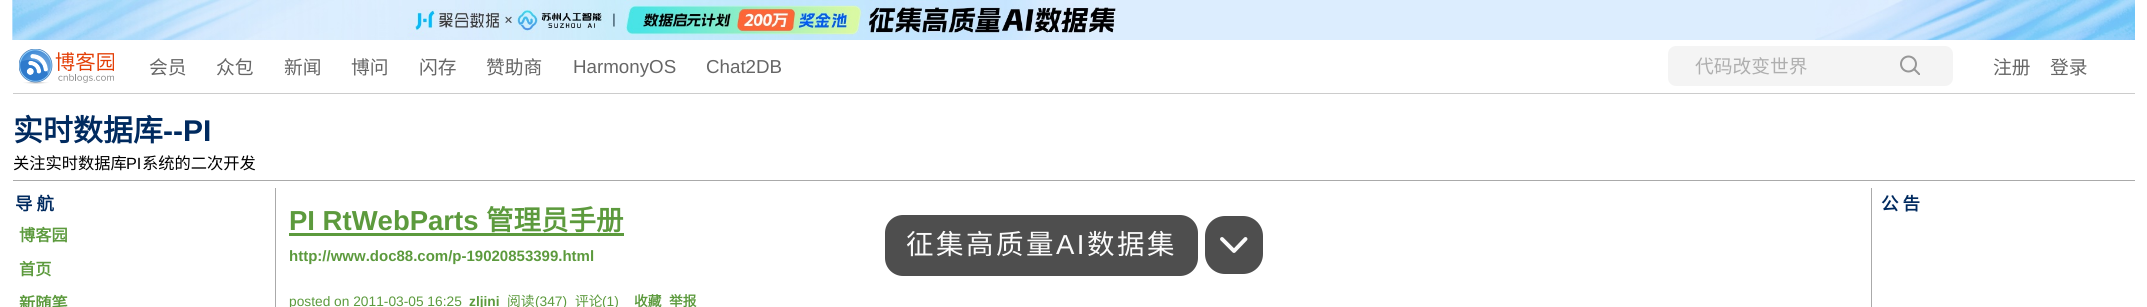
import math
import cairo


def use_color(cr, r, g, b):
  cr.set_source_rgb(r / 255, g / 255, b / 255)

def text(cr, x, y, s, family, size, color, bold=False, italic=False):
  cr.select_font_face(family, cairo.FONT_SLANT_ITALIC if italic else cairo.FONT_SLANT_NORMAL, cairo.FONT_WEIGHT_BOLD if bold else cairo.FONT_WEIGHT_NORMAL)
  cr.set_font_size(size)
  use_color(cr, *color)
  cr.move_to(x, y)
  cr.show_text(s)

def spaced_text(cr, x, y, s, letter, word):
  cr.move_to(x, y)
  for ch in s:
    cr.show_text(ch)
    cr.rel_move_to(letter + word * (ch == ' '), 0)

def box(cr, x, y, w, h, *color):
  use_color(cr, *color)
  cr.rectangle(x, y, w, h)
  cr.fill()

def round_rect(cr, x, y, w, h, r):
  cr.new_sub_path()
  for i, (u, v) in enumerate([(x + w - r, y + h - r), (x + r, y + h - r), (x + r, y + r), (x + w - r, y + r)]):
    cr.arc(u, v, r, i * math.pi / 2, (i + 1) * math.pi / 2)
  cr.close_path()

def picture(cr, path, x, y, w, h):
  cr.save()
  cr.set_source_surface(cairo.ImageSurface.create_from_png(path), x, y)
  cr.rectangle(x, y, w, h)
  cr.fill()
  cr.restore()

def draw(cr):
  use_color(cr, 255, 255, 255)
  cr.paint()
  box(cr, 12, 0, 1803, 40, 220, 237, 254)
  picture(cr, "img_01.png", 12, 0, 1104, 40)
  picture(cr, "img_02.png", 1815, 0, 320, 40)
  box(cr, 13, 93, 2122, 1, 204, 204, 204)
  picture(cr, "img_03.png", 19, 49, 95, 35)
  use_color(cr, 244, 244, 244)
  round_rect(cr, 1668, 46, 285, 40, 8)
  cr.fill()
  cr.arc(1908.5, 64, 7.5, 0, 2 * math.pi)
  use_color(cr, 151, 151, 151)
  cr.stroke()
  cr.save()
  cr.rectangle(1900, 55, 20, 20)
  cr.clip()
  cr.new_path()
  cr.move_to(1913.5, 68.5)
  cr.line_to(1921.5, 76.5)
  cr.stroke()
  cr.restore()
  box(cr, 13, 180, 2122, 1, 170, 170, 170)
  box(cr, 1871, 188, 1, 119, 170, 170, 170)
  box(cr, 275, 188, 1, 119, 170, 170, 170)
  box(cr, 289, 233, 335, 3, 92, 154, 61)
  use_color(cr, 78, 78, 78)
  round_rect(cr, 885, 215, 313, 61, 18)
  cr.fill()
  round_rect(cr, 1205, 216, 58, 58, 20)
  cr.fill()
  cr.new_path()
  cr.move_to(1245.5, 239)
  cr.line_to(1234, 251)
  cr.line_to(1222, 239)
  use_color(cr, 251, 251, 251)
  cr.set_line_width(3.9)
  cr.set_line_cap(cairo.LINE_CAP_ROUND)
  cr.set_line_join(cairo.LINE_JOIN_ROUND)
  cr.stroke()
  text(cr, 149, 74, "会员", "Noto Sans CJK SC", 18.75, (102, 102, 102))
  text(cr, 216, 74, "众包", "Noto Sans CJK SC", 18.75, (102, 102, 102))
  text(cr, 284, 74, "新闻", "Noto Sans CJK SC", 18.75, (102, 102, 102))
  text(cr, 351, 74, "博问", "Noto Sans CJK SC", 18.75, (102, 102, 102))
  text(cr, 419, 74, "闪存", "Noto Sans CJK SC", 18.75, (102, 102, 102))
  text(cr, 486, 74, "赞助商", "Noto Sans CJK SC", 18.75, (102, 102, 102))
  text(cr, 573, 73, "HarmonyOS", "Liberation Sans", 18.75, (102, 102, 102))
  text(cr, 706, 73, "Chat2DB", "Liberation Sans", 18.75, (102, 102, 102))
  text(cr, 1695, 73, "代码改变世界", "Noto Sans CJK SC", 18.75, (175, 175, 175))
  text(cr, 1993, 74, "注册", "Noto Sans CJK SC", 18.75, (102, 102, 102))
  text(cr, 2050, 74, "登录", "Noto Sans CJK SC", 18.75, (102, 102, 102))
  text(cr, 13, 141, "实时数据库", "Noto Sans CJK SC", 30, (0, 42, 95), bold=True)
  text(cr, 163, 141, "--PI", "Liberation Sans", 30, (0, 42, 95), bold=True)
  text(cr, 13, 169, "关注实时数据库", "Noto Sans CJK SC", 16.25, (0, 0, 0))
  text(cr, 126, 169, "PI", "Liberation Sans", 16.25, (0, 0, 0))
  text(cr, 142, 169, "系统的二次开发", "Noto Sans CJK SC", 16.25, (0, 0, 0))
  cr.select_font_face("Noto Sans CJK SC", cairo.FONT_SLANT_NORMAL, cairo.FONT_WEIGHT_BOLD)
  cr.set_font_size(17.5)
  use_color(cr, 0, 42, 95)
  spaced_text(cr, 15, 210, "导航", 4, 0)
  text(cr, 19, 241, "博客园", "Noto Sans CJK SC", 16.25, (92, 154, 61), bold=True)
  text(cr, 19, 275, "首页", "Noto Sans CJK SC", 16.25, (92, 154, 61), bold=True)
  text(cr, 19, 309, "新随笔", "Noto Sans CJK SC", 16.25, (92, 154, 61), bold=True)
  cr.set_font_size(17.5)
  use_color(cr, 0, 42, 95)
  spaced_text(cr, 1881, 210, "公告", 4, 0)
  text(cr, 289, 230, "PI RtWebParts", "Liberation Sans", 27.5, (92, 154, 61), bold=True)
  text(cr, 486, 230, "管理员手册", "Noto Sans CJK SC", 27.5, (92, 154, 61), bold=True)
  text(cr, 289, 261, "http://www.doc88.com/p-19020853399.html", "Liberation Sans", 15, (92, 154, 61), bold=True)
  text(cr, 289, 306, "posted on 2011-03-05 16:25", "Liberation Sans", 13.75, (92, 154, 61))
  text(cr, 469, 306, "zljini", "Liberation Sans", 13.75, (92, 154, 61), bold=True)
  text(cr, 507, 306, "阅读", "Noto Sans CJK SC", 13.75, (92, 154, 61))
  text(cr, 535, 306, "(347)", "Liberation Sans", 13.75, (92, 154, 61))
  text(cr, 575, 306, "评论", "Noto Sans CJK SC", 13.75, (92, 154, 61))
  text(cr, 602, 306, "(1)", "Liberation Sans", 13.75, (92, 154, 61))
  text(cr, 634, 306, "收藏", "Noto Sans CJK SC", 13.75, (92, 154, 61), bold=True)
  text(cr, 669, 306, "举报", "Noto Sans CJK SC", 13.75, (92, 154, 61), bold=True)
  cr.select_font_face("Noto Sans CJK SC")
  cr.set_font_size(27.5)
  use_color(cr, 251, 251, 251)
  spaced_text(cr, 906, 254, "征集高质量", 2.5, 0)
  cr.select_font_face("Liberation Sans")
  spaced_text(cr, 1056, 254, "AI", 2.5, 0)
  cr.select_font_face("Noto Sans CJK SC")
  spaced_text(cr, 1087, 254, "数据集", 2.5, 0)


surface = cairo.ImageSurface(cairo.FORMAT_RGB24, 2147, 307)
cr = cairo.Context(surface)
options = cairo.FontOptions()
options.set_hint_metrics(cairo.HINT_METRICS_OFF)
options.set_hint_style(cairo.HINT_STYLE_NONE)
cr.set_font_options(options)
cr.set_miter_limit(4)
draw(cr)
surface.write_to_png("out.png")
